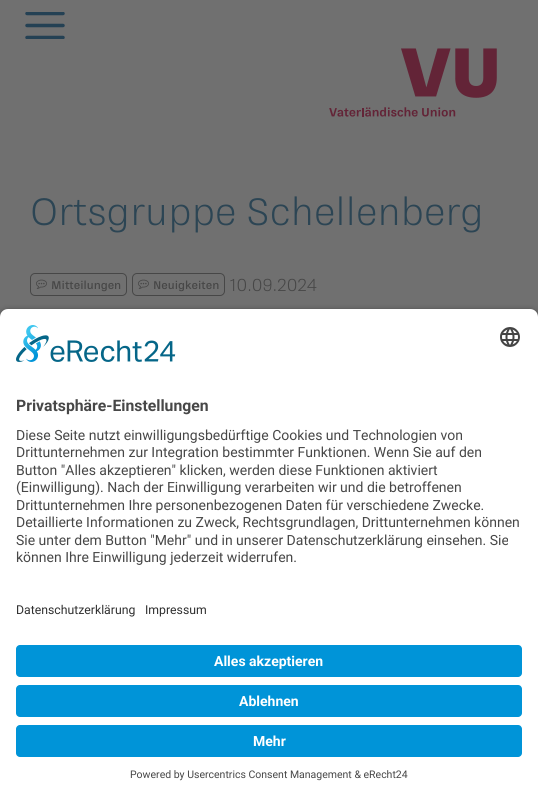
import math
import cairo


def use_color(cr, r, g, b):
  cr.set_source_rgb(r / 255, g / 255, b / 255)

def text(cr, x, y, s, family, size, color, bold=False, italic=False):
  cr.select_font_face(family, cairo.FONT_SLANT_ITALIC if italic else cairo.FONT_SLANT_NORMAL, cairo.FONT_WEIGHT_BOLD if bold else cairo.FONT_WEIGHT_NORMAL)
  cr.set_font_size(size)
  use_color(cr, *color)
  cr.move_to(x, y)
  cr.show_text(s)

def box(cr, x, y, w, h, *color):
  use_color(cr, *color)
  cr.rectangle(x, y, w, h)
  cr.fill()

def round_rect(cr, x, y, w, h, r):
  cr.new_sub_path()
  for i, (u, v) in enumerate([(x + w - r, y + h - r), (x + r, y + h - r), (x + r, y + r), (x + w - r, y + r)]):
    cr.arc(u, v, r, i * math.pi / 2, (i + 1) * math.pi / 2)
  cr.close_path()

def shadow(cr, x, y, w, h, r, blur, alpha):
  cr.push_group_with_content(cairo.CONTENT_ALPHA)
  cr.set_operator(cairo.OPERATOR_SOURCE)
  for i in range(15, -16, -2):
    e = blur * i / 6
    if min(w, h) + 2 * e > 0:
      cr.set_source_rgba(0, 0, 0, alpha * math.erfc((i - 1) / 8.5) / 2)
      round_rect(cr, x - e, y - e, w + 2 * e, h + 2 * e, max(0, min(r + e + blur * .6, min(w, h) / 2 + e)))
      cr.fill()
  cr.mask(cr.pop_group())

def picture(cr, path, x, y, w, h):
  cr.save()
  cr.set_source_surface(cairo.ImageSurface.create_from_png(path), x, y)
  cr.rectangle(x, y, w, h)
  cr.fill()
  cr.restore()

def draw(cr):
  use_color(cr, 112, 112, 112)
  cr.paint()
  cr.save()
  cr.rectangle(25, 12, 40, 27)
  cr.clip()
  cr.new_path()
  cr.move_to(63, 13.5)
  cr.line_to(27, 13.5)
  use_color(cr, 36, 65, 84)
  cr.set_line_width(3.5)
  cr.set_line_cap(cairo.LINE_CAP_ROUND)
  cr.set_line_join(cairo.LINE_JOIN_ROUND)
  cr.stroke()
  cr.restore()
  cr.new_path()
  cr.move_to(63, 25.5)
  cr.line_to(27, 25.5)
  use_color(cr, 36, 65, 84)
  cr.set_line_width(3.5)
  cr.set_line_cap(cairo.LINE_CAP_ROUND)
  cr.set_line_join(cairo.LINE_JOIN_ROUND)
  cr.stroke()
  cr.save()
  cr.rectangle(25, 12, 40, 27)
  cr.clip()
  cr.new_path()
  cr.move_to(63, 37.5)
  cr.line_to(27, 37.5)
  cr.stroke()
  cr.restore()
  picture(cr, "img_01.png", 329, 48, 168, 69)
  round_rect(cr, 30.5, 273.5, 96, 22, 4.5)
  use_color(cr, 71, 71, 71)
  cr.set_line_width(1)
  cr.set_line_cap(cairo.LINE_CAP_BUTT)
  cr.set_line_join(cairo.LINE_JOIN_MITER)
  cr.stroke()
  picture(cr, "img_02.png", 36, 279, 11, 10)
  round_rect(cr, 132.5, 273.5, 92, 22, 4.5)
  cr.stroke()
  picture(cr, "img_02.png", 138, 279, 11, 10)
  use_color(cr, 0, 0, 0)
  shadow(cr, 0, 312, 538, 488, 8, 3.5, 0.8)
  use_color(cr, 255, 255, 255)
  cr.new_path()
  cr.move_to(8, 309)
  cr.line_to(530, 309)
  cr.curve_to(534.5, 309, 538, 312.5, 538, 317)
  cr.line_to(538, 587)
  cr.line_to(0, 587)
  cr.line_to(0, 317)
  cr.curve_to(0, 312.5, 3.5, 309, 8, 309)
  cr.close_path()
  cr.fill()
  picture(cr, "img_03.png", 16, 325, 160, 37)
  picture(cr, "img_04.png", 500, 327, 20, 20)
  box(cr, 0, 587, 538, 210, 255, 255, 255)
  use_color(cr, 0, 148, 216)
  round_rect(cr, 16, 645, 506, 32, 4)
  cr.fill()
  round_rect(cr, 16, 685, 506, 32, 4)
  cr.fill()
  round_rect(cr, 16, 725, 506, 32, 4)
  cr.fill()
  text(cr, 30, 225, "Ortsgruppe Schellenberg", "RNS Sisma", 37.4, (44, 69, 84))
  text(cr, 51, 289, "Mitteilungen", "RNS Sisma", 11, (71, 71, 71), bold=True)
  text(cr, 153, 289, "Neuigkeiten", "RNS Sisma", 11, (71, 71, 71), bold=True)
  text(cr, 230, 291, "10.09.2024", "RNS Sisma", 17, (71, 71, 71))
  text(cr, 16, 411, "Privatsphäre-Einstellungen", "Roboto", 15.75, (71, 71, 71), bold=True)
  text(cr, 16, 440, "Diese Seite nutzt einwilligungsbedürftige Cookies und Technologien von", "Roboto", 14, (71, 71, 71))
  text(cr, 16, 457, "Drittunternehmen zur Integration bestimmter Funktionen. Wenn Sie auf den", "Roboto", 14, (71, 71, 71))
  text(cr, 16, 475, "Button \"Alles akzeptieren\" klicken, werden diese Funktionen aktiviert", "Roboto", 14, (71, 71, 71))
  text(cr, 16, 492, "(Einwilligung). Nach der Einwilligung verarbeiten wir und die betroffenen", "Roboto", 14, (71, 71, 71))
  text(cr, 16, 510, "Drittunternehmen Ihre personenbezogenen Daten für verschiedene Zwecke.", "Roboto", 14, (71, 71, 71))
  text(cr, 16, 527, "Detaillierte Informationen zu Zweck, Rechtsgrundlagen, Drittunternehmen können", "Roboto", 14, (71, 71, 71))
  text(cr, 16, 545, "Sie unter dem Button \"Mehr\" und in unserer Datenschutzerklärung einsehen. Sie", "Roboto", 14, (71, 71, 71))
  text(cr, 16, 562, "können Ihre Einwilligung jederzeit widerrufen.", "Roboto", 14, (71, 71, 71))
  text(cr, 16, 614, "Datenschutzerklärung", "Roboto", 12.25, (48, 48, 48))
  text(cr, 145, 614, "Impressum", "Roboto", 12.25, (48, 48, 48))
  text(cr, 214, 666, "Alles akzeptieren", "Roboto", 14, (255, 255, 255), bold=True)
  text(cr, 239, 706, "Ablehnen", "Roboto", 14, (255, 255, 255), bold=True)
  text(cr, 253, 746, "Mehr", "Roboto", 14, (255, 255, 255), bold=True)
  text(cr, 130, 778, "Powered by Usercentrics Consent Management & eRecht24", "Roboto", 10.5, (71, 71, 71))


surface = cairo.ImageSurface(cairo.FORMAT_RGB24, 538, 797)
cr = cairo.Context(surface)
options = cairo.FontOptions()
options.set_hint_metrics(cairo.HINT_METRICS_OFF)
options.set_hint_style(cairo.HINT_STYLE_NONE)
cr.set_font_options(options)
cr.set_miter_limit(4)
draw(cr)
surface.write_to_png("out.png")
